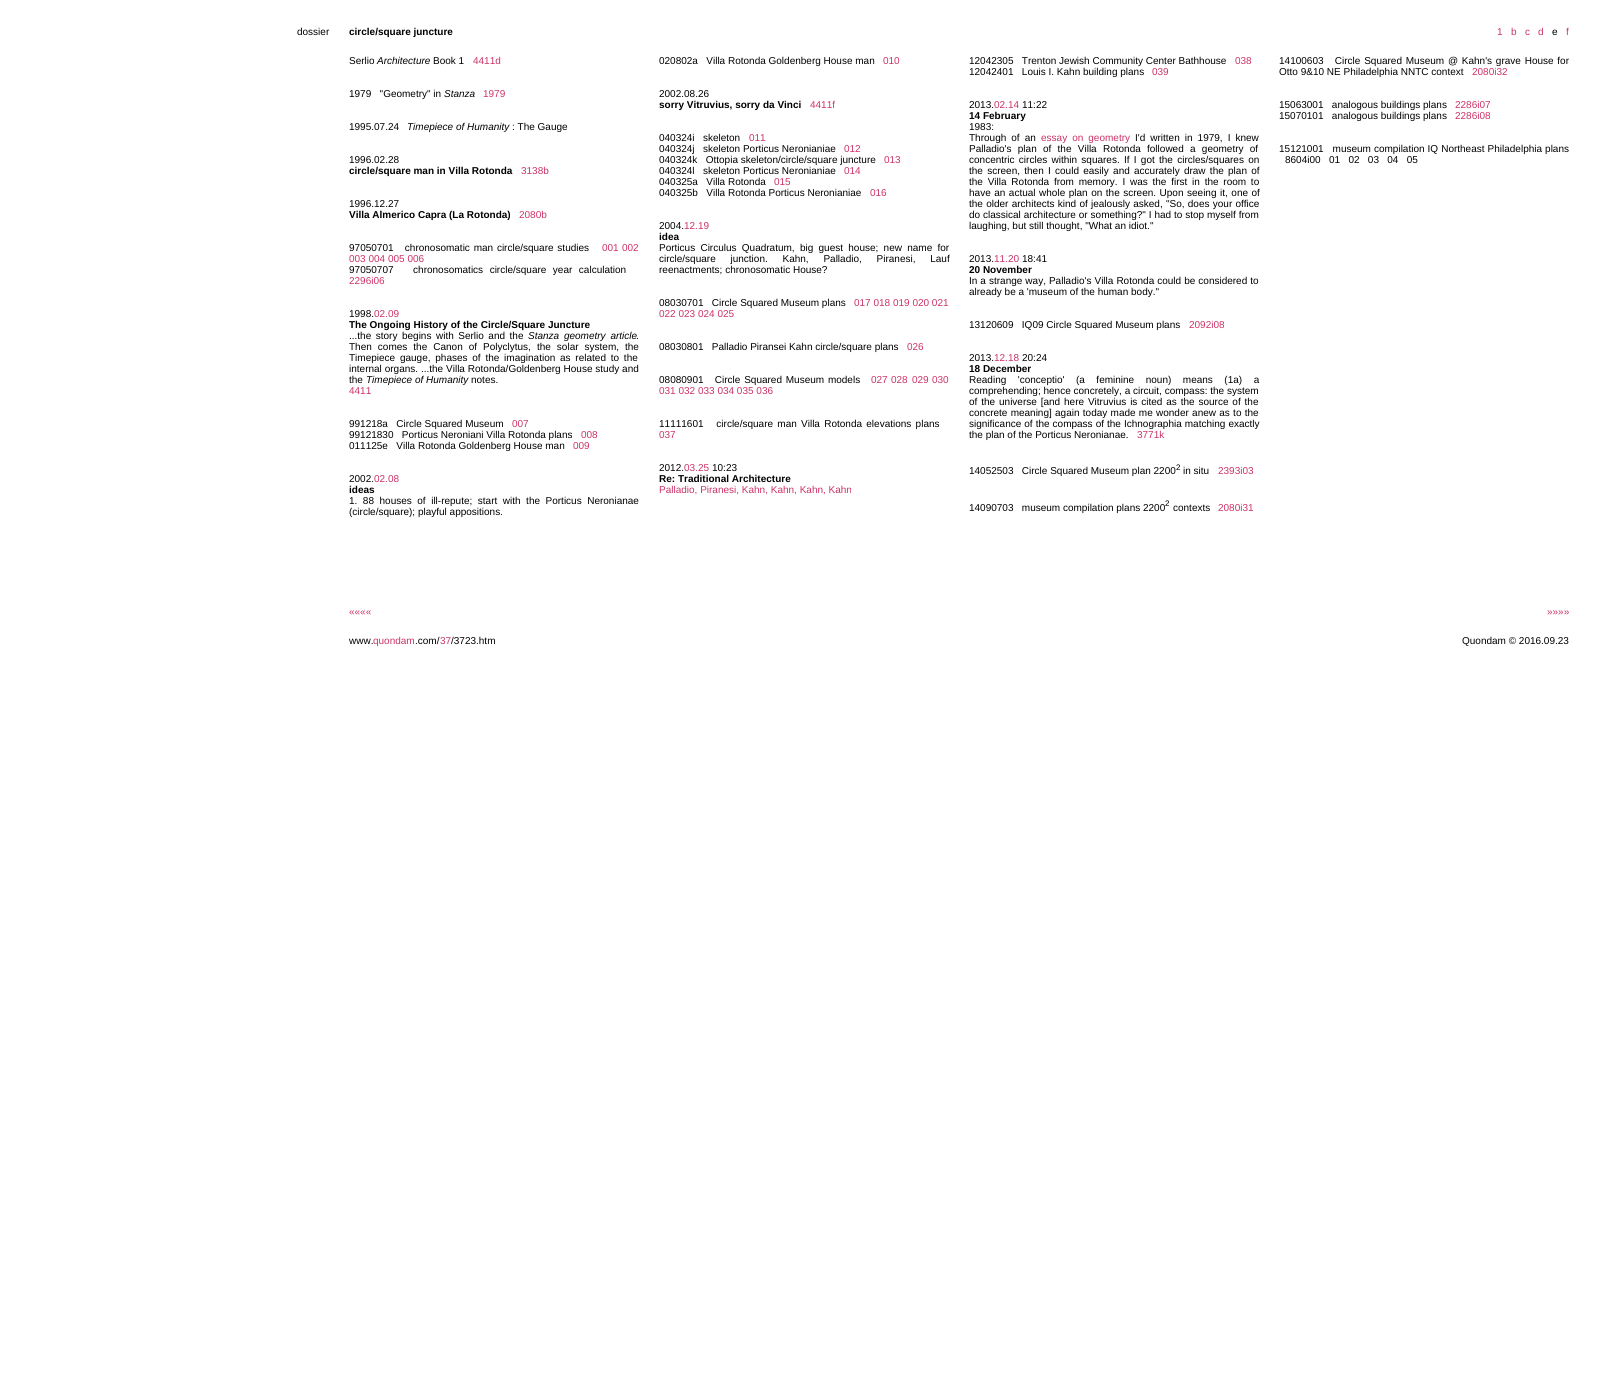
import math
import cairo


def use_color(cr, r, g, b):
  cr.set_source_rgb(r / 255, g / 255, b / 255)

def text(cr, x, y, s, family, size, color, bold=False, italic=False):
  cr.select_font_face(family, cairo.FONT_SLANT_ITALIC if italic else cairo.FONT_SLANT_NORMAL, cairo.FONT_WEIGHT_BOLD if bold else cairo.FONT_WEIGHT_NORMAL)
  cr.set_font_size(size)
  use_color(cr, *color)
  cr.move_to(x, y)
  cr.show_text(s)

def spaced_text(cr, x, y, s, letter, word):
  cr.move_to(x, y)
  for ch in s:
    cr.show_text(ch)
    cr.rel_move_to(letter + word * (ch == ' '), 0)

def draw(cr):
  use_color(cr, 255, 255, 255)
  cr.paint()
  text(cr, 297, 35, "dossier", "Liberation Sans", 10, (0, 0, 0))
  text(cr, 349, 35, "circle/square juncture", "Liberation Sans", 10, (0, 0, 0), bold=True)
  text(cr, 1497, 35, "1", "Liberation Sans", 10, (204, 51, 102))
  text(cr, 1511, 35, "b", "Liberation Sans", 10, (204, 51, 102))
  text(cr, 1525, 35, "c", "Liberation Sans", 10, (204, 51, 102))
  text(cr, 1538, 35, "d", "Liberation Sans", 10, (204, 51, 102))
  text(cr, 1552, 35, "e", "Liberation Sans", 10, (0, 0, 0))
  text(cr, 1566, 35, "f", "Liberation Sans", 10, (204, 51, 102))
  text(cr, 349, 64, "Serlio", "Liberation Sans", 10, (0, 0, 0))
  text(cr, 377, 64, "Architecture", "Liberation Sans", 10, (0, 0, 0), italic=True)
  text(cr, 433, 64, "Book 1", "Liberation Sans", 10, (0, 0, 0))
  text(cr, 473, 64, "4411d", "Liberation Sans", 10, (204, 51, 102))
  text(cr, 349, 97, "1979   \"Geometry\" in", "Liberation Sans", 10, (0, 0, 0))
  text(cr, 444, 97, "Stanza", "Liberation Sans", 10, (0, 0, 0), italic=True)
  text(cr, 483, 97, "1979", "Liberation Sans", 10, (204, 51, 102))
  text(cr, 349, 130, "1995.07.24", "Liberation Sans", 10, (0, 0, 0))
  text(cr, 407, 130, "Timepiece of Humanity", "Liberation Sans", 10, (0, 0, 0), italic=True)
  text(cr, 512, 130, ": The Gauge", "Liberation Sans", 10, (0, 0, 0))
  text(cr, 349, 163, "1996.02.28", "Liberation Sans", 10, (0, 0, 0))
  text(cr, 349, 174, "circle/square man in Villa Rotonda", "Liberation Sans", 10, (0, 0, 0), bold=True)
  text(cr, 521, 174, "3138b", "Liberation Sans", 10, (204, 51, 102))
  text(cr, 349, 207, "1996.12.27", "Liberation Sans", 10, (0, 0, 0))
  text(cr, 349, 218, "Villa Almerico Capra (La Rotonda)", "Liberation Sans", 10, (0, 0, 0), bold=True)
  text(cr, 519, 218, "2080b", "Liberation Sans", 10, (204, 51, 102))
  use_color(cr, 0, 0, 0)
  spaced_text(cr, 349, 251, "97050701   chronosomatic man circle/square studies", 0, 1)
  text(cr, 602, 251, "001", "Liberation Sans", 10, (204, 51, 102))
  text(cr, 622, 251, "002", "Liberation Sans", 10, (204, 51, 102))
  text(cr, 349, 262, "003 004 005 006", "Liberation Sans", 10, (204, 51, 102))
  use_color(cr, 0, 0, 0)
  spaced_text(cr, 349, 273, "97050707   chronosomatics circle/square year calculation", 0, 3.75)
  text(cr, 349, 284, "2296i06", "Liberation Sans", 10, (204, 51, 102))
  text(cr, 349, 317, "1998.", "Liberation Sans", 10, (0, 0, 0))
  text(cr, 374, 317, "02.09", "Liberation Sans", 10, (204, 51, 102))
  text(cr, 349, 328, "The Ongoing History of the Circle/Square Juncture", "Liberation Sans", 10, (0, 0, 0), bold=True)
  cr.select_font_face("Liberation Sans")
  spaced_text(cr, 349, 339, "...the story begins with Serlio and the", 0, 1.75)
  cr.select_font_face("Liberation Sans", cairo.FONT_SLANT_ITALIC)
  spaced_text(cr, 528, 339, "Stanza geometry article", 0, 2)
  text(cr, 636, 339, ".", "Liberation Sans", 10, (0, 0, 0))
  spaced_text(cr, 349, 350, "Then comes the Canon of Polyclytus, the solar system, the", 0, 3.25)
  spaced_text(cr, 349, 361, "Timepiece gauge, phases of the imagination as related to the", 0, 2)
  spaced_text(cr, 349, 372, "internal organs. ...the Villa Rotonda/Goldenberg House study and", 0, 0.1)
  text(cr, 349, 383, "the", "Liberation Sans", 10, (0, 0, 0))
  text(cr, 366, 383, "Timepiece of Humanity", "Liberation Sans", 10, (0, 0, 0), italic=True)
  text(cr, 471, 383, "notes.", "Liberation Sans", 10, (0, 0, 0))
  text(cr, 349, 394, "4411", "Liberation Sans", 10, (204, 51, 102))
  text(cr, 349, 427, "991218a   Circle Squared Museum", "Liberation Sans", 10, (0, 0, 0))
  text(cr, 512, 427, "007", "Liberation Sans", 10, (204, 51, 102))
  text(cr, 349, 438, "99121830   Porticus Neroniani Villa Rotonda plans", "Liberation Sans", 10, (0, 0, 0))
  text(cr, 581, 438, "008", "Liberation Sans", 10, (204, 51, 102))
  text(cr, 349, 449, "011125e   Villa Rotonda Goldenberg House man", "Liberation Sans", 10, (0, 0, 0))
  text(cr, 573, 449, "009", "Liberation Sans", 10, (204, 51, 102))
  text(cr, 349, 482, "2002.", "Liberation Sans", 10, (0, 0, 0))
  text(cr, 374, 482, "02.08", "Liberation Sans", 10, (204, 51, 102))
  text(cr, 349, 493, "ideas", "Liberation Sans", 10, (0, 0, 0), bold=True)
  cr.select_font_face("Liberation Sans")
  spaced_text(cr, 349, 504, "1. 88 houses of ill-repute; start with the Porticus Neronianae", 0, 2.75)
  text(cr, 349, 515, "(circle/square); playful appositions.", "Liberation Sans", 10, (0, 0, 0))
  text(cr, 659, 64, "020802a   Villa Rotonda Goldenberg House man", "Liberation Sans", 10, (0, 0, 0))
  text(cr, 883, 64, "010", "Liberation Sans", 10, (204, 51, 102))
  text(cr, 659, 97, "2002.08.26", "Liberation Sans", 10, (0, 0, 0))
  text(cr, 659, 108, "sorry Vitruvius, sorry da Vinci", "Liberation Sans", 10, (0, 0, 0), bold=True)
  text(cr, 810, 108, "4411f", "Liberation Sans", 10, (204, 51, 102))
  text(cr, 659, 141, "040324i   skeleton", "Liberation Sans", 10, (0, 0, 0))
  text(cr, 749, 141, "011", "Liberation Sans", 10, (204, 51, 102))
  text(cr, 659, 152, "040324j   skeleton Porticus Neronianiae", "Liberation Sans", 10, (0, 0, 0))
  text(cr, 844, 152, "012", "Liberation Sans", 10, (204, 51, 102))
  text(cr, 659, 163, "040324k   Ottopia skeleton/circle/square juncture", "Liberation Sans", 10, (0, 0, 0))
  text(cr, 884, 163, "013", "Liberation Sans", 10, (204, 51, 102))
  text(cr, 659, 174, "040324l   skeleton Porticus Neronianiae", "Liberation Sans", 10, (0, 0, 0))
  text(cr, 844, 174, "014", "Liberation Sans", 10, (204, 51, 102))
  text(cr, 659, 185, "040325a   Villa Rotonda", "Liberation Sans", 10, (0, 0, 0))
  text(cr, 774, 185, "015", "Liberation Sans", 10, (204, 51, 102))
  text(cr, 659, 196, "040325b   Villa Rotonda Porticus Neronianiae", "Liberation Sans", 10, (0, 0, 0))
  text(cr, 870, 196, "016", "Liberation Sans", 10, (204, 51, 102))
  text(cr, 659, 229, "2004.", "Liberation Sans", 10, (0, 0, 0))
  text(cr, 684, 229, "12.19", "Liberation Sans", 10, (204, 51, 102))
  text(cr, 659, 240, "idea", "Liberation Sans", 10, (0, 0, 0), bold=True)
  cr.select_font_face("Liberation Sans")
  spaced_text(cr, 659, 251, "Porticus Circulus Quadratum, big guest house; new name for", 0, 2.5)
  spaced_text(cr, 659, 262, "circle/square junction. Kahn, Palladio, Piranesi, Lauf", 0, 12)
  text(cr, 659, 273, "reenactments; chronosomatic House?", "Liberation Sans", 10, (0, 0, 0))
  text(cr, 659, 306, "08030701   Circle Squared Museum plans", "Liberation Sans", 10, (0, 0, 0))
  text(cr, 854, 306, "017 018 019 020 021", "Liberation Sans", 10, (204, 51, 102))
  text(cr, 659, 317, "022 023 024 025", "Liberation Sans", 10, (204, 51, 102))
  text(cr, 659, 350, "08030801   Palladio Piransei Kahn circle/square plans", "Liberation Sans", 10, (0, 0, 0))
  text(cr, 907, 350, "026", "Liberation Sans", 10, (204, 51, 102))
  use_color(cr, 0, 0, 0)
  spaced_text(cr, 659, 383, "08080901   Circle Squared Museum models", 0, 1)
  text(cr, 871, 383, "027", "Liberation Sans", 10, (204, 51, 102))
  text(cr, 891, 383, "028", "Liberation Sans", 10, (204, 51, 102))
  text(cr, 912, 383, "029", "Liberation Sans", 10, (204, 51, 102))
  text(cr, 932, 383, "030", "Liberation Sans", 10, (204, 51, 102))
  text(cr, 659, 394, "031 032 033 034 035 036", "Liberation Sans", 10, (204, 51, 102))
  use_color(cr, 0, 0, 0)
  spaced_text(cr, 659, 427, "11111601   circle/square man Villa Rotonda elevations plans", 0, 1.5)
  text(cr, 659, 438, "037", "Liberation Sans", 10, (204, 51, 102))
  text(cr, 659, 471, "2012.", "Liberation Sans", 10, (0, 0, 0))
  text(cr, 684, 471, "03.25", "Liberation Sans", 10, (204, 51, 102))
  text(cr, 712, 471, "10:23", "Liberation Sans", 10, (0, 0, 0))
  text(cr, 659, 482, "Re: Traditional Architecture", "Liberation Sans", 10, (0, 0, 0), bold=True)
  text(cr, 659, 493, "Palladio, Piranesi, Kahn, Kahn, Kahn, Kahn", "Liberation Sans", 10, (204, 51, 102))
  text(cr, 969, 64, "12042305   Trenton Jewish Community Center Bathhouse", "Liberation Sans", 10, (0, 0, 0))
  text(cr, 1235, 64, "038", "Liberation Sans", 10, (204, 51, 102))
  text(cr, 969, 75, "12042401   Louis I. Kahn building plans", "Liberation Sans", 10, (0, 0, 0))
  text(cr, 1152, 75, "039", "Liberation Sans", 10, (204, 51, 102))
  text(cr, 969, 108, "2013.", "Liberation Sans", 10, (0, 0, 0))
  text(cr, 994, 108, "02.14", "Liberation Sans", 10, (204, 51, 102))
  text(cr, 1022, 108, "11:22", "Liberation Sans", 10, (0, 0, 0))
  text(cr, 969, 119, "14 February", "Liberation Sans", 10, (0, 0, 0), bold=True)
  text(cr, 969, 130, "1983:", "Liberation Sans", 10, (0, 0, 0))
  spaced_text(cr, 969, 141, "Through of an", 0, 2.25)
  use_color(cr, 204, 51, 102)
  spaced_text(cr, 1041, 141, "essay on geometry", 0, 2.25)
  use_color(cr, 0, 0, 0)
  spaced_text(cr, 1135, 141, "I'd written in 1979, I knew", 0, 2.25)
  spaced_text(cr, 969, 152, "Palladio's plan of the Villa Rotonda followed a geometry of", 0, 3.5)
  spaced_text(cr, 969, 163, "concentric circles within squares. If I got the circles/squares on", 0, 1.5)
  spaced_text(cr, 969, 174, "the screen, then I could easily and accurately draw the plan of", 0, 1.5)
  spaced_text(cr, 969, 185, "the Villa Rotonda from memory. I was the first in the room to", 0, 2)
  spaced_text(cr, 969, 196, "have an actual whole plan on the screen. Upon seeing it, one of", 0, 0.75)
  spaced_text(cr, 969, 207, "the older architects kind of jealously asked, \"So, does your office", 0, 0.5)
  spaced_text(cr, 969, 218, "do classical architecture or something?\" I had to stop myself from", 0, 0.1)
  text(cr, 969, 229, "laughing, but still thought, \"What an idiot.\"", "Liberation Sans", 10, (0, 0, 0))
  text(cr, 969, 262, "2013.", "Liberation Sans", 10, (0, 0, 0))
  text(cr, 994, 262, "11.20", "Liberation Sans", 10, (204, 51, 102))
  text(cr, 1022, 262, "18:41", "Liberation Sans", 10, (0, 0, 0))
  text(cr, 969, 273, "20 November", "Liberation Sans", 10, (0, 0, 0), bold=True)
  cr.select_font_face("Liberation Sans")
  spaced_text(cr, 969, 284, "In a strange way, Palladio's Villa Rotonda could be considered to", 0, 0.25)
  text(cr, 969, 295, "already be a 'museum of the human body.\"", "Liberation Sans", 10, (0, 0, 0))
  text(cr, 969, 328, "13120609   IQ09 Circle Squared Museum plans", "Liberation Sans", 10, (0, 0, 0))
  text(cr, 1189, 328, "2092i08", "Liberation Sans", 10, (204, 51, 102))
  text(cr, 969, 361, "2013.", "Liberation Sans", 10, (0, 0, 0))
  text(cr, 994, 361, "12.18", "Liberation Sans", 10, (204, 51, 102))
  text(cr, 1022, 361, "20:24", "Liberation Sans", 10, (0, 0, 0))
  text(cr, 969, 372, "18 December", "Liberation Sans", 10, (0, 0, 0), bold=True)
  cr.select_font_face("Liberation Sans")
  spaced_text(cr, 969, 383, "Reading 'conceptio' (a feminine noun) means (1a) a", 0, 8.75)
  text(cr, 969, 394, "comprehending; hence concretely, a circuit, compass: the system", "Liberation Sans", 10, (0, 0, 0))
  spaced_text(cr, 969, 405, "of the universe [and here Vitruvius is cited as the source of the", 0, 1.1)
  spaced_text(cr, 969, 416, "concrete meaning] again today made me wonder anew as to the", 0, 0.5)
  spaced_text(cr, 969, 427, "significance of the compass of the Ichnographia matching exactly", 0, 0.25)
  text(cr, 969, 438, "the plan of the Porticus Neronianae.", "Liberation Sans", 10, (0, 0, 0))
  text(cr, 1137, 438, "3771k", "Liberation Sans", 10, (204, 51, 102))
  text(cr, 969, 474, "14052503   Circle Squared Museum plan 2200", "Liberation Sans", 10, (0, 0, 0))
  text(cr, 1176, 470, "2", "Liberation Sans", 8, (0, 0, 0))
  text(cr, 1183, 474, "in situ", "Liberation Sans", 10, (0, 0, 0))
  text(cr, 1218, 474, "2393i03", "Liberation Sans", 10, (204, 51, 102))
  text(cr, 969, 511, "14090703   museum compilation plans 2200", "Liberation Sans", 10, (0, 0, 0))
  text(cr, 1165, 506, "2", "Liberation Sans", 8, (0, 0, 0))
  text(cr, 1173, 511, "contexts", "Liberation Sans", 10, (0, 0, 0))
  text(cr, 1218, 511, "2080i31", "Liberation Sans", 10, (204, 51, 102))
  use_color(cr, 0, 0, 0)
  spaced_text(cr, 1279, 64, "14100603   Circle Squared Museum @ Kahn's grave House for", 0, 1)
  text(cr, 1279, 75, "Otto 9&10 NE Philadelphia NNTC context", "Liberation Sans", 10, (0, 0, 0))
  text(cr, 1472, 75, "2080i32", "Liberation Sans", 10, (204, 51, 102))
  text(cr, 1279, 108, "15063001   analogous buildings plans", "Liberation Sans", 10, (0, 0, 0))
  text(cr, 1455, 108, "2286i07", "Liberation Sans", 10, (204, 51, 102))
  text(cr, 1279, 119, "15070101   analogous buildings plans", "Liberation Sans", 10, (0, 0, 0))
  text(cr, 1455, 119, "2286i08", "Liberation Sans", 10, (204, 51, 102))
  use_color(cr, 0, 0, 0)
  spaced_text(cr, 1279, 152, "15121001   museum compilation IQ Northeast Philadelphia plans", 0, 0.25)
  text(cr, 1285, 163, "8604i00   01   02   03   04   05", "Liberation Sans", 10, (0, 0, 0))
  text(cr, 349, 615, "««««", "Liberation Sans", 10, (204, 51, 102))
  text(cr, 1547, 615, "»»»»", "Liberation Sans", 10, (204, 51, 102))
  text(cr, 349, 644, "www.", "Liberation Sans", 10, (0, 0, 0))
  text(cr, 373, 644, "quondam", "Liberation Sans", 10, (204, 51, 102))
  text(cr, 415, 644, ".com/", "Liberation Sans", 10, (0, 0, 0))
  text(cr, 440, 644, "37", "Liberation Sans", 10, (204, 51, 102))
  text(cr, 451, 644, "/3723.htm", "Liberation Sans", 10, (0, 0, 0))
  text(cr, 1462, 644, "Quondam © 2016.09.23", "Liberation Sans", 10, (0, 0, 0))


surface = cairo.ImageSurface(cairo.FORMAT_RGB24, 1608, 1392)
cr = cairo.Context(surface)
options = cairo.FontOptions()
options.set_hint_metrics(cairo.HINT_METRICS_OFF)
options.set_hint_style(cairo.HINT_STYLE_NONE)
cr.set_font_options(options)
cr.set_miter_limit(4)
draw(cr)
surface.write_to_png("out.png")
